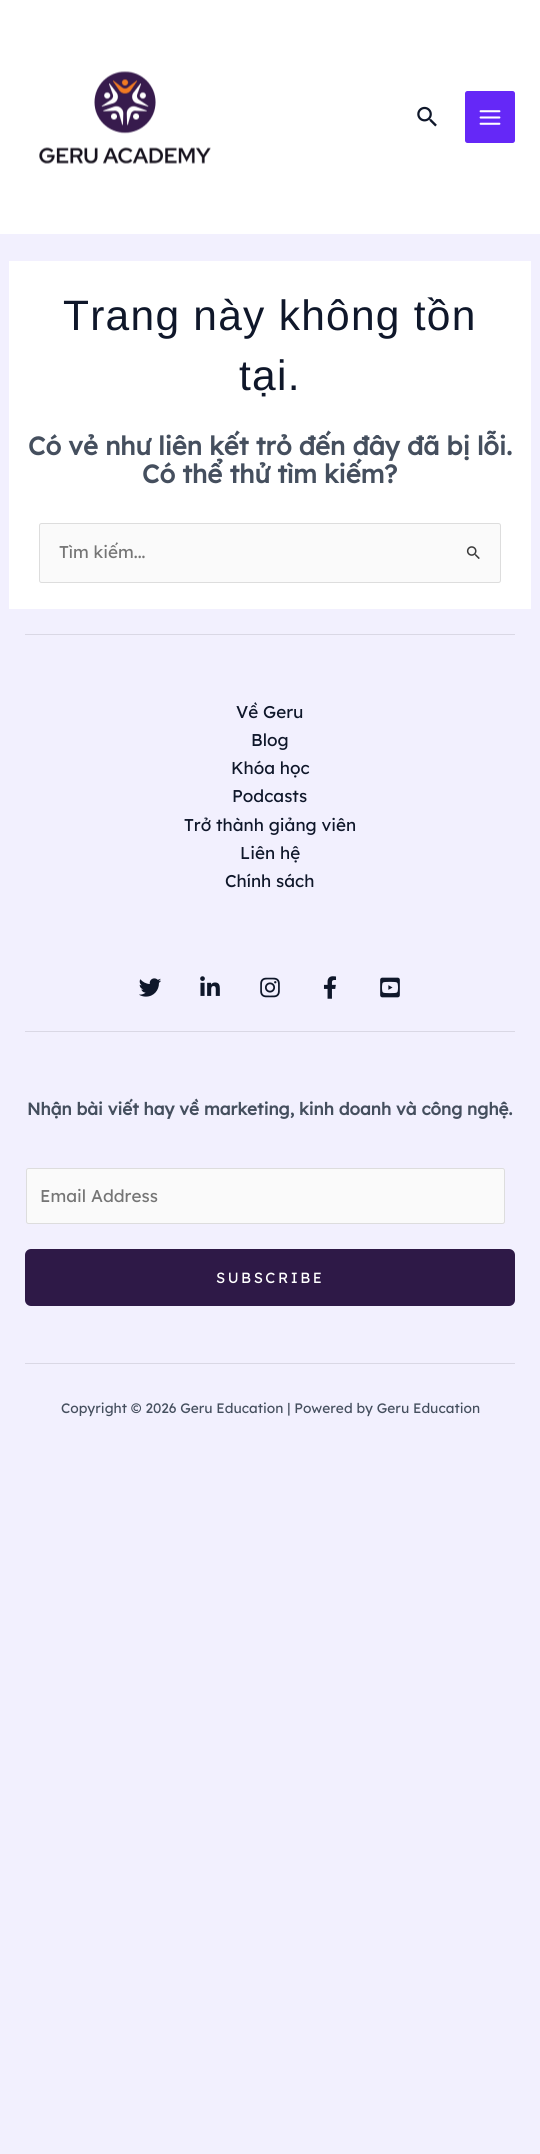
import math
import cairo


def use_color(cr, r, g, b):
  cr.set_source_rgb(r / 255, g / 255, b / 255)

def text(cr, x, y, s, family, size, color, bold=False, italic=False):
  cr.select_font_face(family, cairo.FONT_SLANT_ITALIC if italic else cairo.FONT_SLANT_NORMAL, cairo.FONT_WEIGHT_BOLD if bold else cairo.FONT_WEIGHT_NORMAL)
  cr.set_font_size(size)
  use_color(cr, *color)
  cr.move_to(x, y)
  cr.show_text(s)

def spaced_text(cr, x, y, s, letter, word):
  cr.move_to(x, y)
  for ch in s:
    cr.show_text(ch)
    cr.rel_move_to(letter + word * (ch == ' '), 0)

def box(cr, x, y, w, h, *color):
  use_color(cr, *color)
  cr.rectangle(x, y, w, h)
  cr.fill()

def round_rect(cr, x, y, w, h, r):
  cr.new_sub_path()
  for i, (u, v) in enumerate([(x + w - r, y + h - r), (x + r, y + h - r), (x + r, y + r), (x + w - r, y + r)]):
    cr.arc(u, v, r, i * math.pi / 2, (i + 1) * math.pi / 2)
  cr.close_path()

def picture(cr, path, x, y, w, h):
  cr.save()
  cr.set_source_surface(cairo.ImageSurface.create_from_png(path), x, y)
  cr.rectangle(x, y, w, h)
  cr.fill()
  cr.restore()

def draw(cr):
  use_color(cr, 242, 240, 254)
  cr.paint()
  box(cr, 0, 0, 540, 234, 255, 255, 255)
  picture(cr, "img_01.png", 39, 71, 172, 93)
  picture(cr, "img_02.png", 417, 106, 20, 21)
  use_color(cr, 101, 40, 247)
  round_rect(cr, 465, 91, 50, 52, 2.5)
  cr.fill()
  picture(cr, "img_03.png", 479, 110, 22, 15)
  box(cr, 9, 261, 522, 348, 255, 255, 255)
  use_color(cr, 250, 250, 250)
  round_rect(cr, 39.5, 523.5, 461, 59, 2)
  cr.fill_preserve()
  use_color(cr, 221, 221, 221)
  cr.set_line_width(1)
  cr.stroke()
  picture(cr, "img_04.png", 466, 546, 14, 13)
  box(cr, 25, 634, 490, 1, 218, 216, 229)
  picture(cr, "img_05.png", 139, 978, 22, 19)
  picture(cr, "img_06.png", 200, 976, 20, 20)
  picture(cr, "img_07.png", 260, 977, 20, 21)
  picture(cr, "img_08.png", 323, 976, 14, 23)
  picture(cr, "img_09.png", 380, 977, 20, 21)
  box(cr, 25, 1031, 490, 1, 218, 216, 229)
  use_color(cr, 250, 250, 250)
  round_rect(cr, 26.5, 1168.5, 478, 55, 2)
  cr.fill_preserve()
  use_color(cr, 221, 221, 221)
  cr.stroke()
  use_color(cr, 46, 25, 71)
  round_rect(cr, 25, 1249, 490, 57, 6)
  cr.fill()
  box(cr, 25, 1363, 490, 1, 218, 216, 229)
  cr.select_font_face("Liberation Sans")
  cr.set_font_size(42.5)
  use_color(cr, 15, 23, 42)
  spaced_text(cr, 63, 330, "Trang này không tồn", 1.25, 0)
  spaced_text(cr, 239, 390, "tại.", 1.25, 0)
  text(cr, 28, 455, "Có vẻ như liên kết trỏ đến đây đã bị lỗi.", "Lexend Deca", 25.6, (69, 79, 94), bold=True)
  text(cr, 142, 483, "Có thể thử tìm kiếm?", "Lexend Deca", 25.6, (69, 79, 94), bold=True)
  text(cr, 59, 558, "Tìm kiếm...", "Lexend Deca", 17.1, (117, 117, 117))
  text(cr, 236, 718, "Về Geru", "Lexend Deca", 17.1, (15, 23, 42))
  text(cr, 251, 746, "Blog", "Lexend Deca", 17.1, (15, 23, 42))
  text(cr, 231, 774, "Khóa học", "Lexend Deca", 17.1, (15, 23, 42))
  text(cr, 232, 802, "Podcasts", "Lexend Deca", 17.1, (15, 23, 42))
  text(cr, 184, 831, "Trở thành giảng viên", "Lexend Deca", 17.1, (15, 23, 42))
  text(cr, 240, 859, "Liên hệ", "Lexend Deca", 17.1, (15, 23, 42))
  text(cr, 225, 887, "Chính sách", "Lexend Deca", 17.1, (15, 23, 42))
  text(cr, 27, 1115, "Nhận bài viết hay về marketing, kinh doanh và công nghệ.", "Lexend Deca", 17.1, (69, 79, 94), bold=True)
  text(cr, 40, 1202, "Email Address", "Lexend Deca", 17.1, (117, 117, 117))
  cr.set_font_size(14.75)
  use_color(cr, 255, 255, 255)
  spaced_text(cr, 216, 1283, "SUBSCRIBE", 2.5, 0)
  text(cr, 61, 1413, "Copyright © 2026 Geru Education | Powered by Geru Education", "Lexend Deca", 13.7, (69, 79, 94))


surface = cairo.ImageSurface(cairo.FORMAT_RGB24, 540, 2154)
cr = cairo.Context(surface)
options = cairo.FontOptions()
options.set_hint_metrics(cairo.HINT_METRICS_OFF)
options.set_hint_style(cairo.HINT_STYLE_NONE)
cr.set_font_options(options)
cr.set_miter_limit(4)
draw(cr)
surface.write_to_png("out.png")
